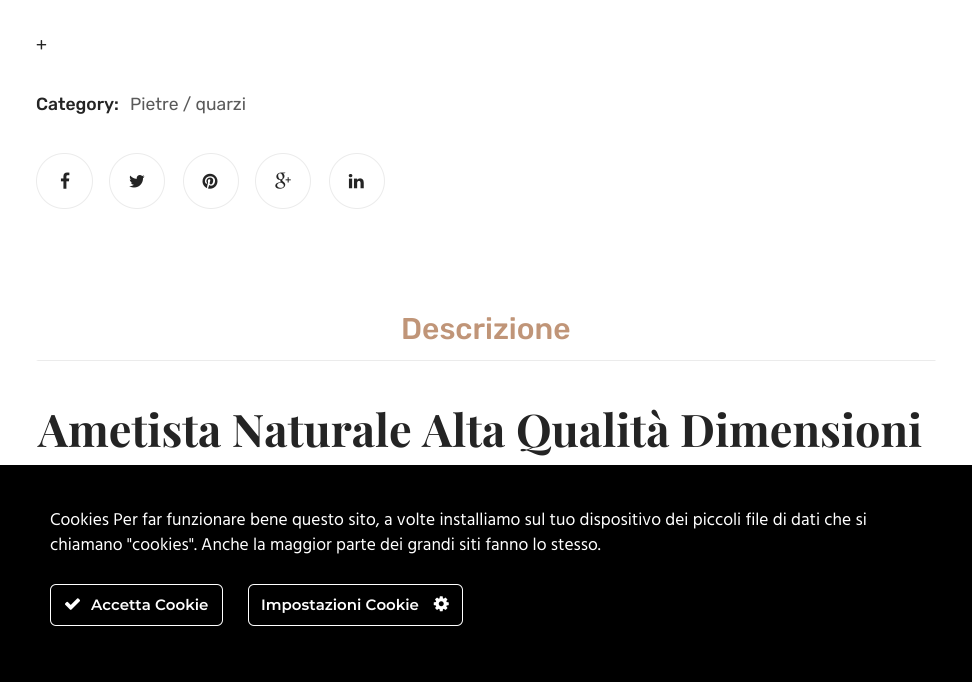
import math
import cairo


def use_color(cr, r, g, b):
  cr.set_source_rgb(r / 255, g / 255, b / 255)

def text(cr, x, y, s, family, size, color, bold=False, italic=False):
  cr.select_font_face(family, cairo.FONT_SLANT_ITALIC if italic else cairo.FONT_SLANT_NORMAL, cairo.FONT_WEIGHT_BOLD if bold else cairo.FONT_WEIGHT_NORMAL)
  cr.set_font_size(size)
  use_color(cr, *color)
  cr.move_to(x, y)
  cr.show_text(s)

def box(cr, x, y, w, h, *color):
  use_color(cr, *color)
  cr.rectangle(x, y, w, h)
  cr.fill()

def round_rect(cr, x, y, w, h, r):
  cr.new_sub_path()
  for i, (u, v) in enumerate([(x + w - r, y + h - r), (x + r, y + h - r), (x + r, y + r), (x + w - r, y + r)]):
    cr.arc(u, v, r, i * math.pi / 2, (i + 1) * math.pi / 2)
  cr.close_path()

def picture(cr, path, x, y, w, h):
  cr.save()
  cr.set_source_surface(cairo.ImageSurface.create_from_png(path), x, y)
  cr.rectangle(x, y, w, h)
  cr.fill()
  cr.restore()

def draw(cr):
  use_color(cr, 255, 255, 255)
  cr.paint()
  round_rect(cr, 36.5, 153.5, 56, 55, 27.5)
  use_color(cr, 235, 235, 235)
  cr.set_line_width(1)
  cr.stroke()
  picture(cr, "img_01.png", 60, 172, 10, 17)
  cr.arc(137, 181, 27.5, 0, 2 * math.pi)
  cr.stroke()
  picture(cr, "img_02.png", 129, 175, 16, 13)
  cr.arc(211, 181, 27.5, 0, 2 * math.pi)
  cr.stroke()
  picture(cr, "img_03.png", 202, 173, 16, 16)
  cr.arc(283, 181, 27.5, 0, 2 * math.pi)
  cr.stroke()
  picture(cr, "img_04.png", 275, 172, 16, 17)
  cr.arc(357, 181, 27.5, 0, 2 * math.pi)
  cr.stroke()
  picture(cr, "img_05.png", 348, 174, 16, 15)
  cr.new_path()
  cr.move_to(36, 360)
  cr.line_to(936, 360)
  cr.line_to(935, 361)
  cr.line_to(38, 361)
  cr.close_path()
  cr.fill()
  box(cr, 0, 465, 972, 217, 0, 0, 0)
  round_rect(cr, 50.5, 584.5, 172, 41, 5.5)
  use_color(cr, 255, 255, 255)
  cr.stroke()
  picture(cr, "img_06.png", 65, 598, 15, 12)
  round_rect(cr, 248.5, 584.5, 214, 41, 5.5)
  cr.stroke()
  picture(cr, "img_07.png", 433, 596, 16, 16)
  text(cr, 36, 50, "+", "Rubik", 17.5, (36, 36, 36))
  text(cr, 36, 110, "Category:", "Rubik Medium", 17.5, (36, 36, 36))
  text(cr, 130, 110, "Pietre / quarzi", "Rubik", 17.5, (90, 90, 90))
  text(cr, 401, 339, "Descrizione", "Rubik Medium", 30, (192, 149, 120))
  text(cr, 38, 447, "Ametista Naturale Alta Qualità Dimensioni", "Playfair Display", 45, (36, 36, 36), bold=True)
  text(cr, 50, 525, "Cookies Per far funzionare bene questo sito, a volte installiamo sul tuo dispositivo dei piccoli file di dati che si", "Hind", 17.5, (255, 255, 255))
  text(cr, 50, 550, "chiamano \"cookies\". Anche la maggior parte dei grandi siti fanno lo stesso.", "Hind", 17.5, (255, 255, 255))
  text(cr, 91, 610, "Accetta Cookie", "Montserrat SemiBold", 15, (255, 255, 255))
  text(cr, 261, 610, "Impostazioni Cookie", "Montserrat SemiBold", 15, (255, 255, 255))


surface = cairo.ImageSurface(cairo.FORMAT_RGB24, 972, 682)
cr = cairo.Context(surface)
options = cairo.FontOptions()
options.set_hint_metrics(cairo.HINT_METRICS_OFF)
options.set_hint_style(cairo.HINT_STYLE_NONE)
cr.set_font_options(options)
cr.set_miter_limit(4)
draw(cr)
surface.write_to_png("out.png")
